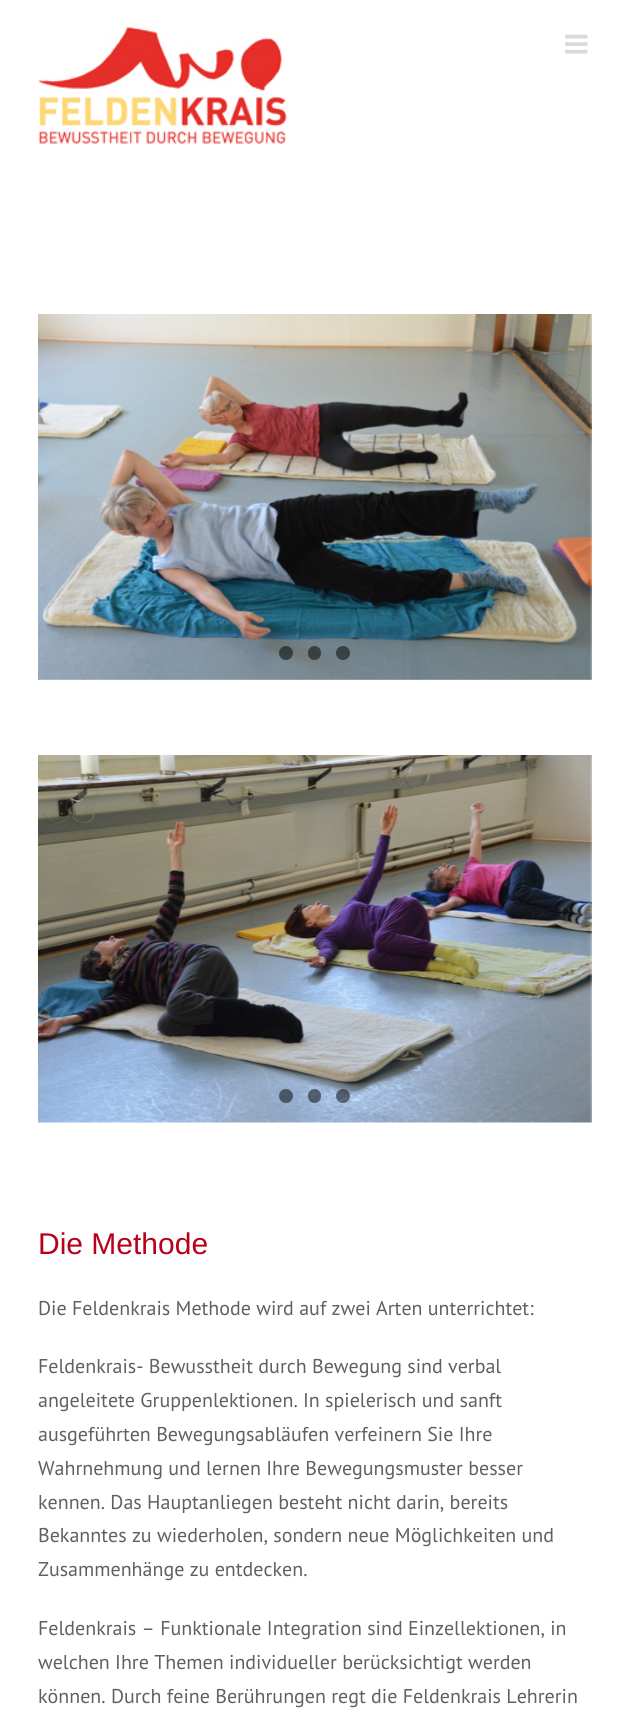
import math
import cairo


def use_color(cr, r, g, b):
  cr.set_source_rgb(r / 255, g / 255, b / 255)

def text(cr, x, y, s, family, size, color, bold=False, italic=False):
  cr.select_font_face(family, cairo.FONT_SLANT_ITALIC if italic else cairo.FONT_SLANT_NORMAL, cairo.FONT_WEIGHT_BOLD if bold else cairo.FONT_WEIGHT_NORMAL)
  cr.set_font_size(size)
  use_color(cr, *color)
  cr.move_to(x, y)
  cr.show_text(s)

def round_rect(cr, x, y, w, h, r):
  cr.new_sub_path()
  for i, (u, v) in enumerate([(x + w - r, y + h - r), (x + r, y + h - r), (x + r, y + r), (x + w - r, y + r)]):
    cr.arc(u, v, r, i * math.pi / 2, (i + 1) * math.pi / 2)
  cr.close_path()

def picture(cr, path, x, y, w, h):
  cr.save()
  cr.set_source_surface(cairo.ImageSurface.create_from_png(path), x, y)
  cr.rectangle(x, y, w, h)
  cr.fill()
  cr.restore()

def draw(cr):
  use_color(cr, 255, 255, 255)
  cr.paint()
  picture(cr, "img_01.png", 38, 27, 249, 117)
  picture(cr, "img_02.png", 565, 34, 23, 20)
  picture(cr, "img_03.png", 38, 314, 554, 366)
  cr.set_source_rgba(0, 0, 0, 0.5)
  cr.arc(286, 653, 7, 0, 2 * math.pi)
  cr.fill()
  round_rect(cr, 308, 646, 13, 14, 6.5)
  cr.fill()
  cr.arc(343, 653, 7, 0, 2 * math.pi)
  cr.fill()
  picture(cr, "img_04.png", 38, 755, 554, 368)
  cr.arc(286, 1096, 7, 0, 2 * math.pi)
  cr.fill()
  round_rect(cr, 308, 1089, 13, 14, 6.5)
  cr.fill()
  cr.arc(343, 1096, 7, 0, 2 * math.pi)
  cr.fill()
  text(cr, 38, 1254, "Die Methode", "Liberation Sans", 30, (183, 0, 27))
  text(cr, 38, 1315, "Die Feldenkrais Methode wird auf zwei Arten unterrichtet:", "PT Sans", 20, (96, 96, 96))
  text(cr, 38, 1373, "Feldenkrais- Bewusstheit durch Bewegung sind verbal", "PT Sans", 20, (96, 96, 96))
  text(cr, 38, 1407, "angeleitete Gruppenlektionen. In spielerisch und sanft", "PT Sans", 20, (96, 96, 96))
  text(cr, 38, 1441, "ausgeführten Bewegungsabläufen verfeinern Sie Ihre", "PT Sans", 20, (96, 96, 96))
  text(cr, 38, 1475, "Wahrnehmung und lernen Ihre Bewegungsmuster besser", "PT Sans", 20, (96, 96, 96))
  text(cr, 38, 1509, "kennen. Das Hauptanliegen besteht nicht darin, bereits", "PT Sans", 20, (96, 96, 96))
  text(cr, 38, 1542, "Bekanntes zu wiederholen, sondern neue Möglichkeiten und", "PT Sans", 20, (96, 96, 96))
  text(cr, 38, 1576, "Zusammenhänge zu entdecken.", "PT Sans", 20, (96, 96, 96))
  text(cr, 38, 1635, "Feldenkrais – Funktionale Integration sind Einzellektionen, in", "PT Sans", 20, (96, 96, 96))
  text(cr, 38, 1669, "welchen Ihre Themen individueller berücksichtigt werden", "PT Sans", 20, (96, 96, 96))
  text(cr, 38, 1703, "können. Durch feine Berührungen regt die Feldenkrais Lehrerin", "PT Sans", 20, (96, 96, 96))


surface = cairo.ImageSurface(cairo.FORMAT_RGB24, 628, 1732)
cr = cairo.Context(surface)
options = cairo.FontOptions()
options.set_hint_metrics(cairo.HINT_METRICS_OFF)
options.set_hint_style(cairo.HINT_STYLE_NONE)
cr.set_font_options(options)
cr.set_miter_limit(4)
draw(cr)
surface.write_to_png("out.png")
